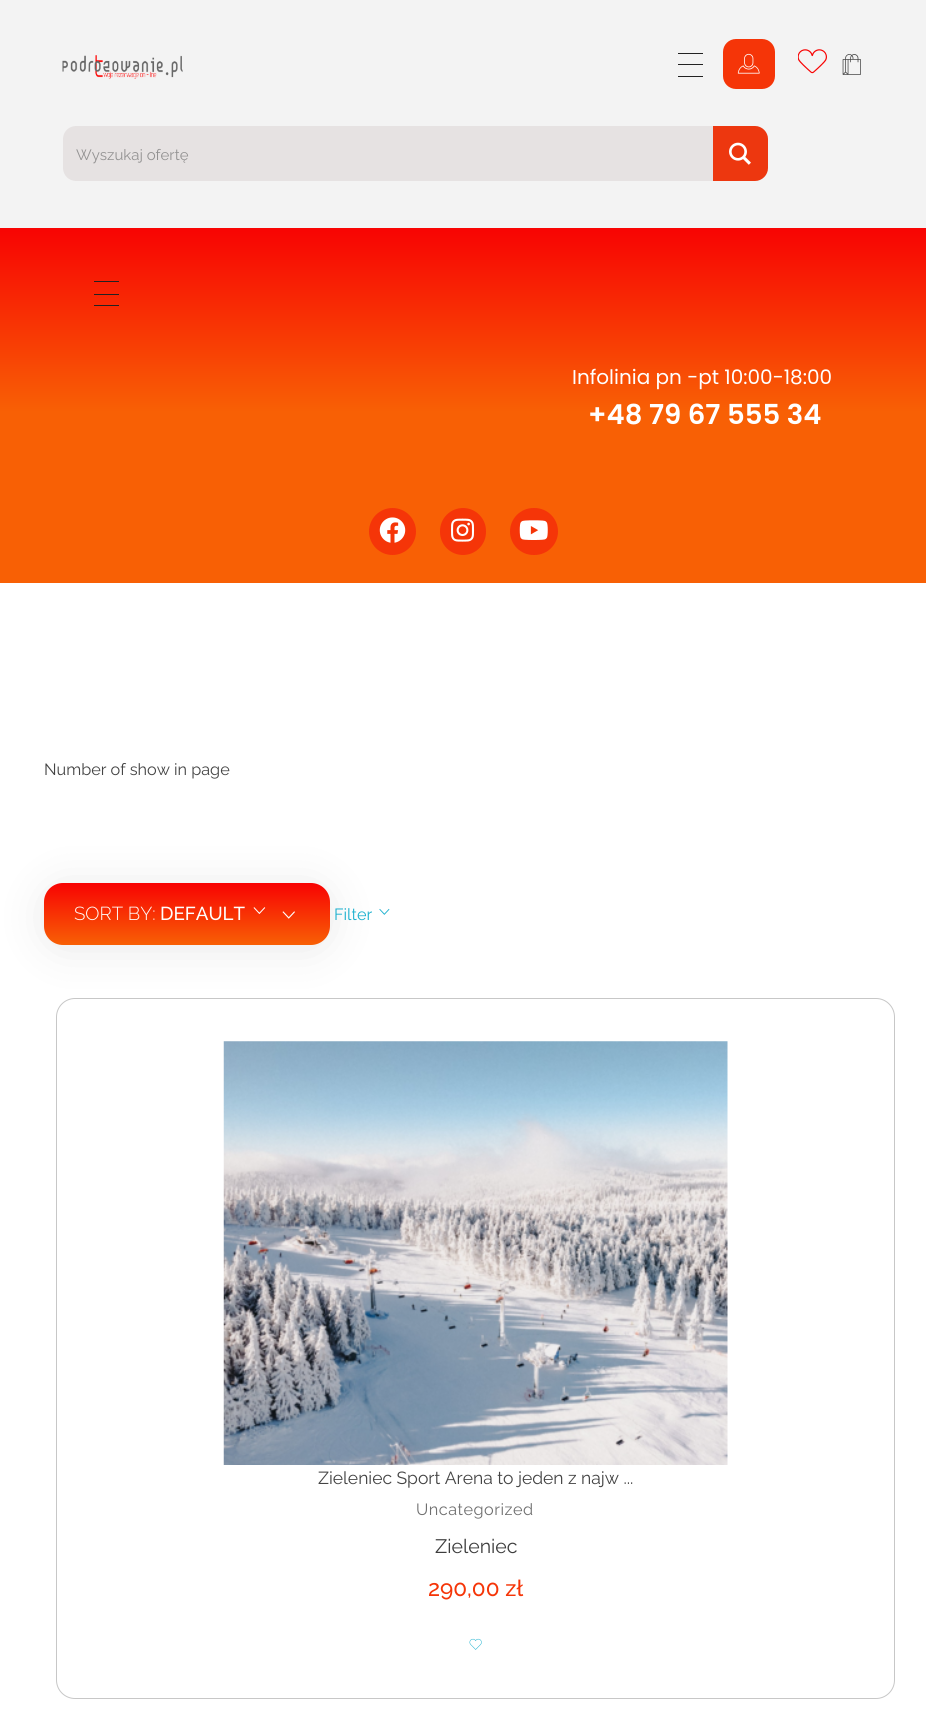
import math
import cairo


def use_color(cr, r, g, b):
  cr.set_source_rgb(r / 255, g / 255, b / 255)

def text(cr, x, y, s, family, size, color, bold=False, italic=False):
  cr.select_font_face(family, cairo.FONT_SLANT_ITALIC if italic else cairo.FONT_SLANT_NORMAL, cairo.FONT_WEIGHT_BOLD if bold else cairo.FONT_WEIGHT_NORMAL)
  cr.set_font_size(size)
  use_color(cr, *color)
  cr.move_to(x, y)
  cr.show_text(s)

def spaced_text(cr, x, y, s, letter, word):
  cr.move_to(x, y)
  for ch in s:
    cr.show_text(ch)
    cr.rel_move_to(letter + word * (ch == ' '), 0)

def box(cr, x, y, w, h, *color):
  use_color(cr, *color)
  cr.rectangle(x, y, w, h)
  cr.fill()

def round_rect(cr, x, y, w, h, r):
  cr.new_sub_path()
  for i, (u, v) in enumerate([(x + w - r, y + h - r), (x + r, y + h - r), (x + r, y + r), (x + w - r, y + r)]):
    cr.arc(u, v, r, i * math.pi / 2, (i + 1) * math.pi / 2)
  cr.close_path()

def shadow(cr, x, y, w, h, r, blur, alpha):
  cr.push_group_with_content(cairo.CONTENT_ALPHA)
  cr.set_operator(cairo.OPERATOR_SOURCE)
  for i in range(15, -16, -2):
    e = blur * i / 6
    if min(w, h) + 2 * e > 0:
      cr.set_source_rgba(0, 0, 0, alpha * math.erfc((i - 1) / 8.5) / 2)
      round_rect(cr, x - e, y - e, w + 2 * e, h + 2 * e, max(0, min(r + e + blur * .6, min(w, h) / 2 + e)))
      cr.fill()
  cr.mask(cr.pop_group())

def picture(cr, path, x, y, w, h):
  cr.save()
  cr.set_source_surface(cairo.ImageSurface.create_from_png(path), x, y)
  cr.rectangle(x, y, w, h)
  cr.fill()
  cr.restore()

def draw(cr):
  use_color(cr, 255, 255, 255)
  cr.paint()
  box(cr, 0, 0, 926, 228, 243, 243, 243)
  picture(cr, "img_01.png", 62, 55, 121, 24)
  box(cr, 678, 53, 25, 1, 34, 34, 34)
  box(cr, 678, 64, 25, 1, 34, 34, 34)
  box(cr, 678, 76, 25, 1, 34, 34, 34)
  use_color(cr, 245, 53, 8)
  round_rect(cr, 723, 39, 52, 50, 13)
  cr.fill()
  picture(cr, "img_02.png", 737, 53, 23, 21)
  picture(cr, "img_03.png", 798, 49, 29, 25)
  picture(cr, "img_04.png", 842, 54, 19, 21)
  use_color(cr, 230, 226, 226)
  round_rect(cr, 63, 126, 705, 55, 13)
  cr.fill()
  use_color(cr, 237, 55, 15)
  cr.new_path()
  cr.move_to(713, 126)
  cr.line_to(755, 126)
  cr.curve_to(762, 126, 768, 132, 768, 139)
  cr.line_to(768, 168)
  cr.curve_to(768, 175, 762, 181, 755, 181)
  cr.line_to(713, 181)
  cr.close_path()
  cr.fill()
  picture(cr, "img_05.png", 729, 142, 22, 23)
  gradient = cairo.LinearGradient(463, 227, 463, 583)
  gradient.add_color_stop_rgba(0, 0.973, 0.012, 0.012, 1)
  gradient.add_color_stop_rgba(0.52, 0.973, 0.376, 0.02, 1)
  cr.set_source(gradient)
  cr.rectangle(0, 228, 926, 355)
  cr.fill()
  box(cr, 94, 281, 25, 1, 34, 34, 34)
  box(cr, 94, 294, 25, 1, 34, 34, 34)
  box(cr, 94, 305, 25, 1, 34, 34, 34)
  use_color(cr, 245, 53, 8)
  cr.arc(392.5, 531.5, 23.5, 0, 2 * math.pi)
  cr.fill()
  picture(cr, "img_06.png", 379, 517, 27, 26)
  round_rect(cr, 440, 508, 46, 47, 23)
  cr.fill()
  picture(cr, "img_07.png", 451, 518, 24, 24)
  round_rect(cr, 510, 508, 48, 47, 23.5)
  cr.fill()
  picture(cr, "img_08.png", 519, 520, 29, 20)
  picture(cr, "img_11.png", 379, 908, 11, 7)
  use_color(cr, 0, 0, 0)
  shadow(cr, 44, 886, 286, 63, 19, 22, 0.09)
  gradient = cairo.LinearGradient(187, 883, 187, 945)
  gradient.add_color_stop_rgba(0, 0.973, 0.012, 0.012, 1)
  gradient.add_color_stop_rgba(1, 0.973, 0.376, 0.02, 1)
  cr.set_source(gradient)
  round_rect(cr, 44, 883, 286, 62, 19)
  cr.fill()
  picture(cr, "img_09.png", 253, 907, 13, 7)
  picture(cr, "img_10.png", 282, 911, 13, 8)
  round_rect(cr, 56.5, 998.5, 838, 700, 18.5)
  use_color(cr, 199, 199, 199)
  cr.set_line_width(1)
  cr.stroke()
  picture(cr, "img_12.png", 223, 1041, 505, 424)
  picture(cr, "img_13.png", 469, 1638, 13, 12)
  text(cr, 76, 160, "Wyszukaj ofertę", "Raleway", 15, (147, 146, 146))
  text(cr, 572, 384, "Infolinia pn -pt 10:00-18:00", "Poppins", 20, (255, 255, 255))
  text(cr, 588, 424, "+48 79 67 555 34", "Poppins SemiBold", 27.5, (255, 255, 255))
  text(cr, 44, 775, "Number of show in page", "Raleway", 16.25, (68, 68, 68))
  text(cr, 74, 920, "SORT BY:", "Raleway Light", 18.75, (255, 255, 255))
  text(cr, 160, 920, "DEFAULT", "Raleway Medium", 18.75, (255, 255, 255))
  text(cr, 334, 920, "Filter", "Raleway", 16.25, (27, 176, 206))
  text(cr, 318, 1484, "Zieleniec Sport Arena to jeden z najw ...", "Raleway", 17.5, (68, 68, 68))
  cr.set_font_size(16.25)
  use_color(cr, 112, 112, 112)
  spaced_text(cr, 416, 1515, "Uncategorized", 0.5, 0)
  text(cr, 435, 1553, "Zieleniec", "Raleway", 19.5, (61, 61, 61))
  text(cr, 428, 1596, "290,00 zł", "Raleway Medium", 22.5, (245, 53, 8))


surface = cairo.ImageSurface(cairo.FORMAT_RGB24, 926, 1718)
cr = cairo.Context(surface)
options = cairo.FontOptions()
options.set_hint_metrics(cairo.HINT_METRICS_OFF)
options.set_hint_style(cairo.HINT_STYLE_NONE)
cr.set_font_options(options)
cr.set_miter_limit(4)
draw(cr)
surface.write_to_png("out.png")
